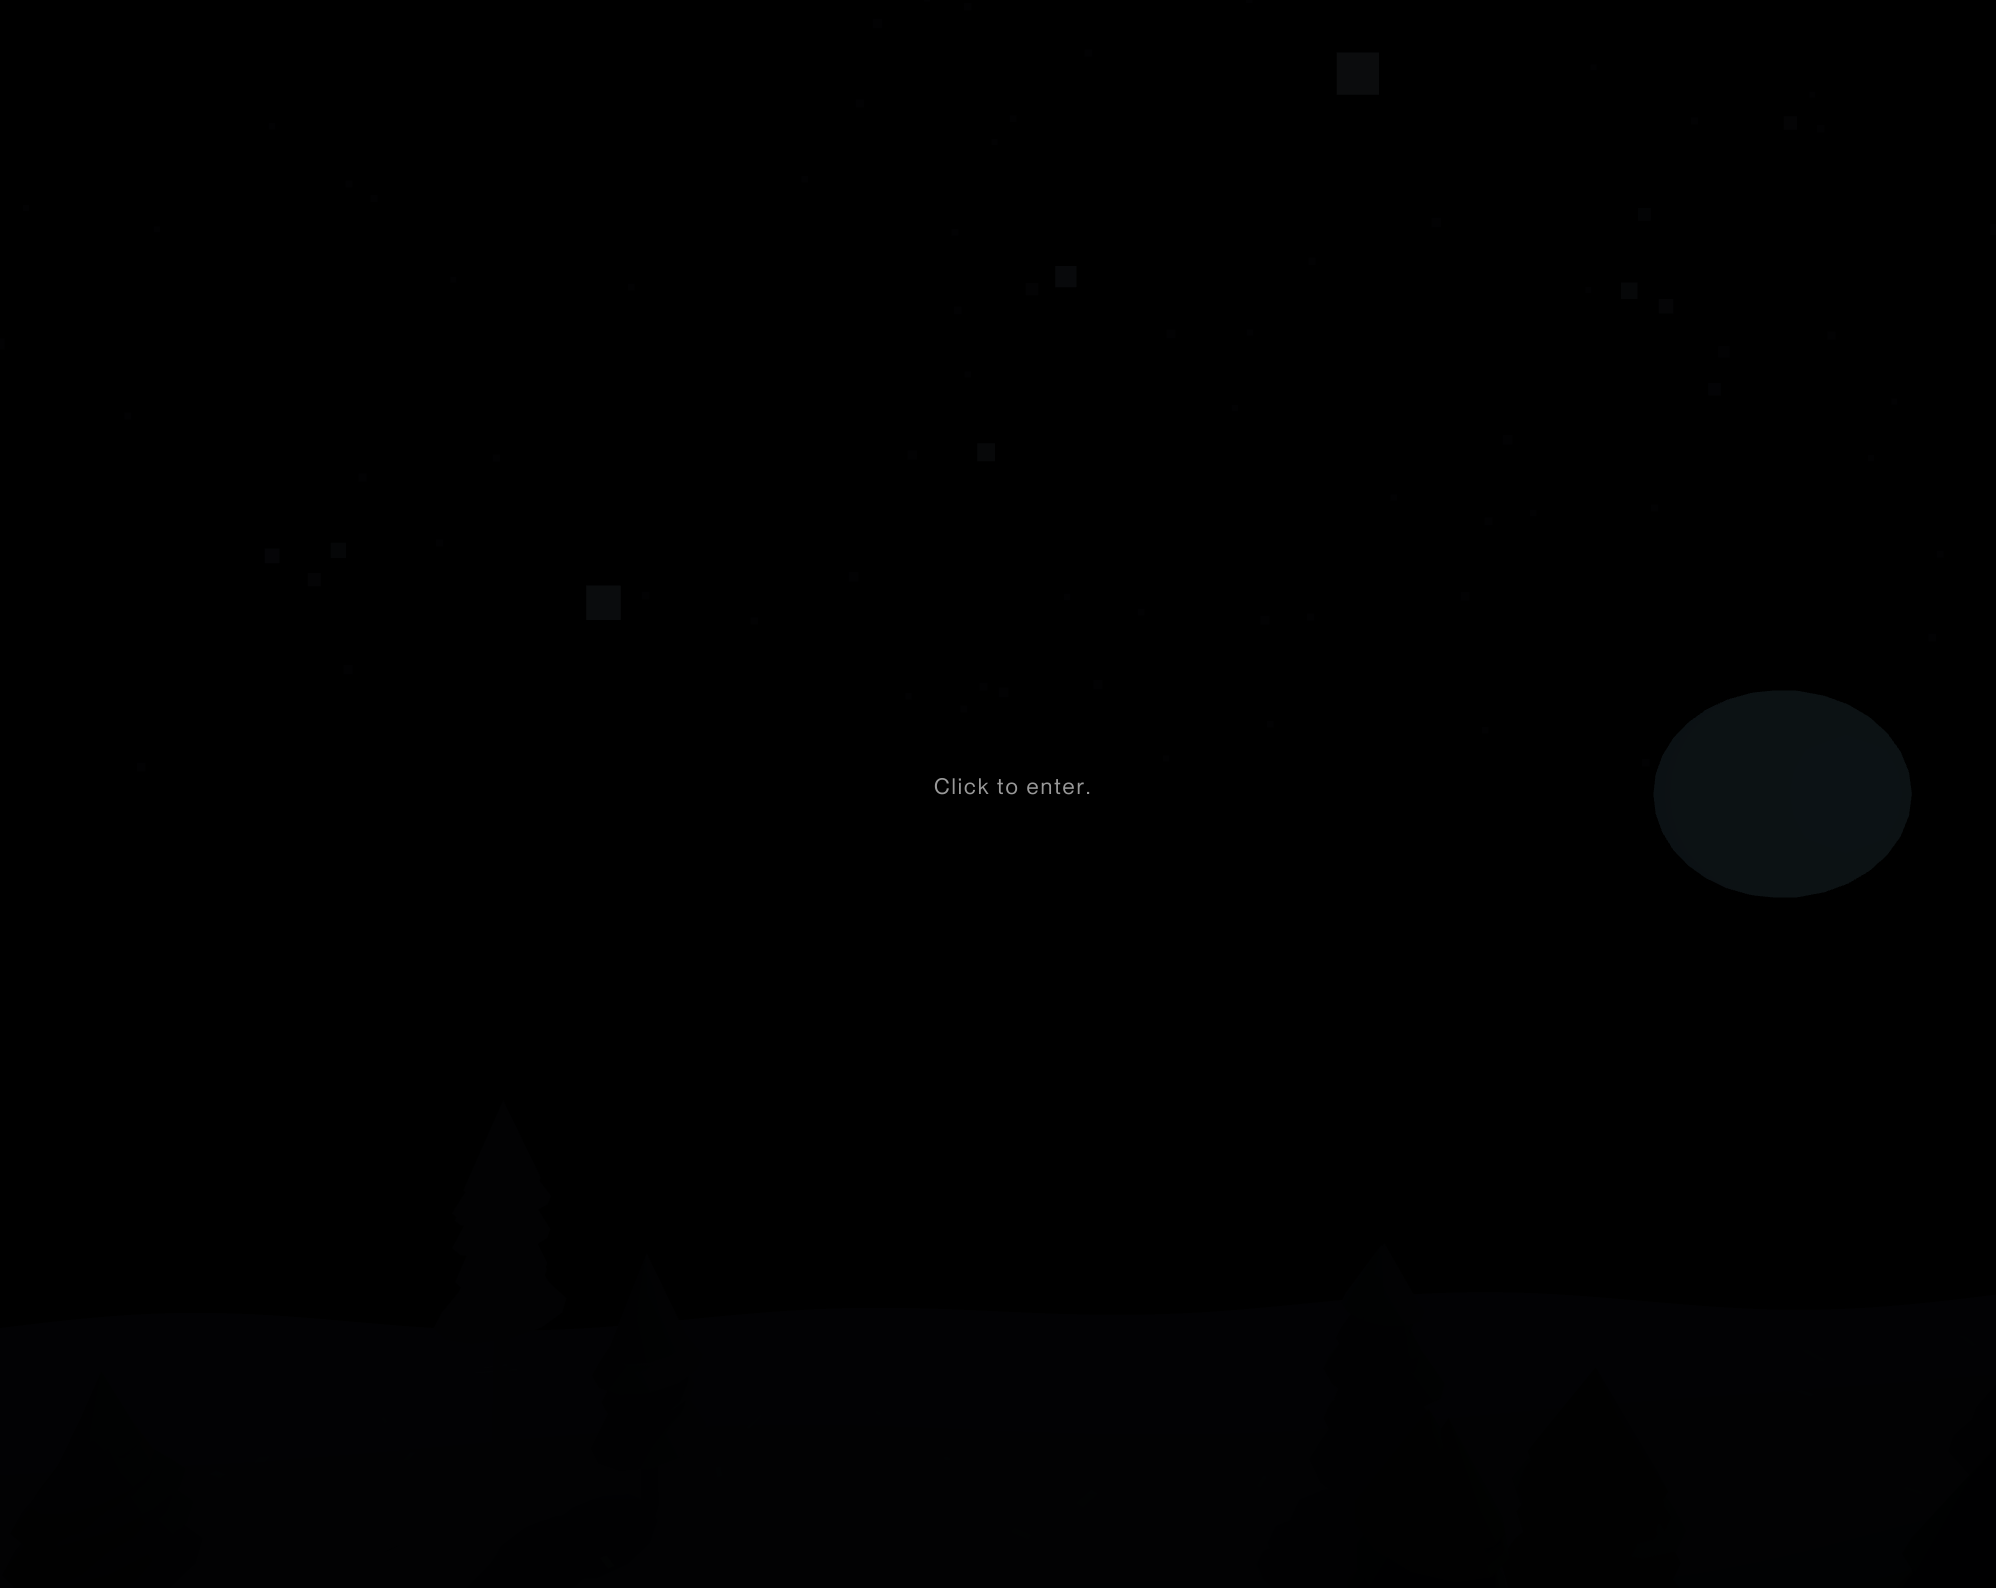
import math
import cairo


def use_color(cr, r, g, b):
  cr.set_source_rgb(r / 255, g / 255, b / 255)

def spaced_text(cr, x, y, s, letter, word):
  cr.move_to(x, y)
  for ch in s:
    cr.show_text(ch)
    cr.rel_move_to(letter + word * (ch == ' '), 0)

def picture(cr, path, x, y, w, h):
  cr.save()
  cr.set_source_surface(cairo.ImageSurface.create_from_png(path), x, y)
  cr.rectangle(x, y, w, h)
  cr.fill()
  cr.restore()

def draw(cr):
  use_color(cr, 255, 255, 255)
  cr.paint()
  picture(cr, "img_01.png", 0, 0, 1996, 1588)
  cr.select_font_face("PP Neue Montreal")
  cr.set_font_size(22)
  use_color(cr, 153, 153, 153)
  spaced_text(cr, 934, 794, "Click to enter.", 2, 0)


surface = cairo.ImageSurface(cairo.FORMAT_RGB24, 1996, 1588)
cr = cairo.Context(surface)
options = cairo.FontOptions()
options.set_hint_metrics(cairo.HINT_METRICS_OFF)
options.set_hint_style(cairo.HINT_STYLE_NONE)
cr.set_font_options(options)
cr.set_miter_limit(4)
draw(cr)
surface.write_to_png("out.png")
